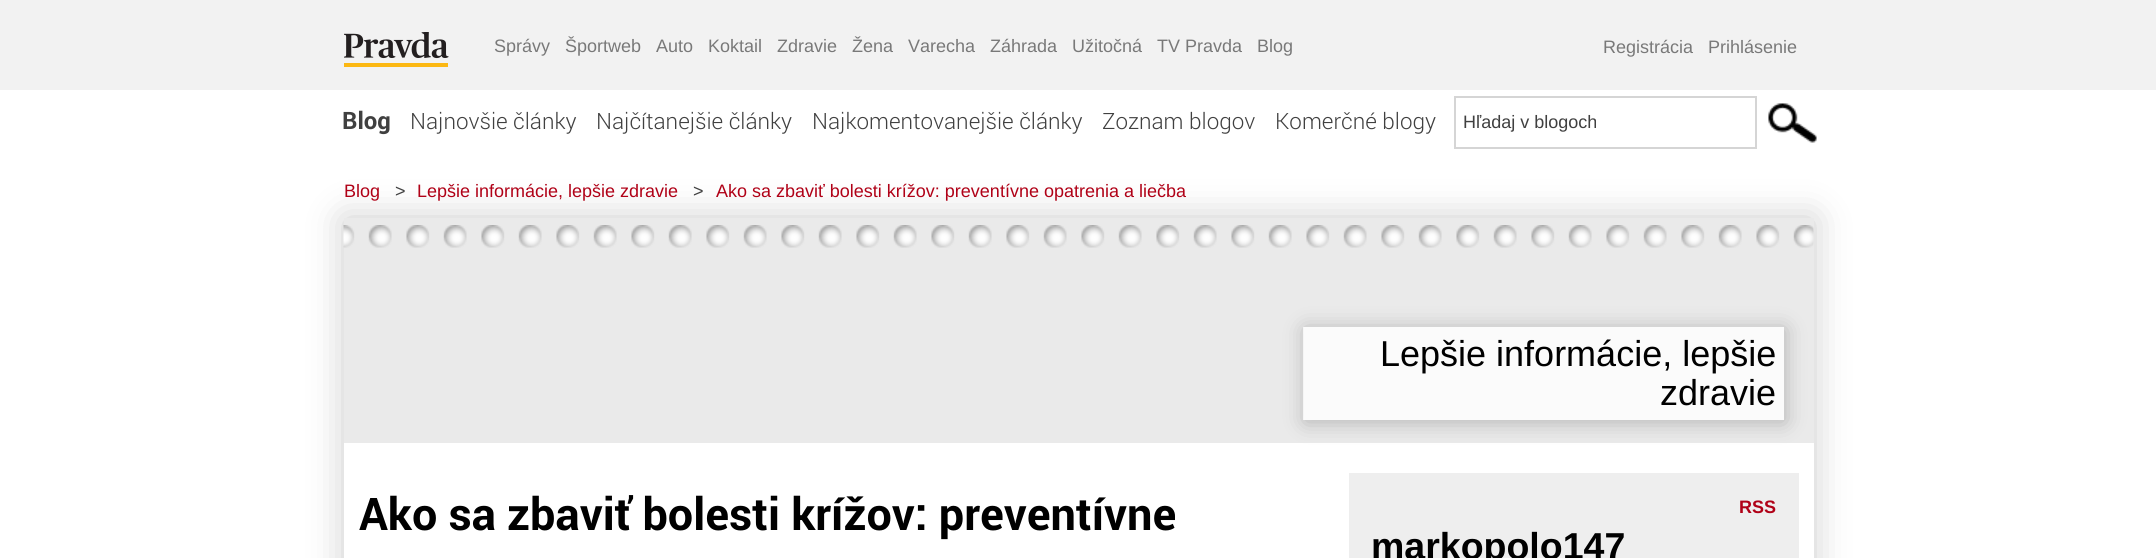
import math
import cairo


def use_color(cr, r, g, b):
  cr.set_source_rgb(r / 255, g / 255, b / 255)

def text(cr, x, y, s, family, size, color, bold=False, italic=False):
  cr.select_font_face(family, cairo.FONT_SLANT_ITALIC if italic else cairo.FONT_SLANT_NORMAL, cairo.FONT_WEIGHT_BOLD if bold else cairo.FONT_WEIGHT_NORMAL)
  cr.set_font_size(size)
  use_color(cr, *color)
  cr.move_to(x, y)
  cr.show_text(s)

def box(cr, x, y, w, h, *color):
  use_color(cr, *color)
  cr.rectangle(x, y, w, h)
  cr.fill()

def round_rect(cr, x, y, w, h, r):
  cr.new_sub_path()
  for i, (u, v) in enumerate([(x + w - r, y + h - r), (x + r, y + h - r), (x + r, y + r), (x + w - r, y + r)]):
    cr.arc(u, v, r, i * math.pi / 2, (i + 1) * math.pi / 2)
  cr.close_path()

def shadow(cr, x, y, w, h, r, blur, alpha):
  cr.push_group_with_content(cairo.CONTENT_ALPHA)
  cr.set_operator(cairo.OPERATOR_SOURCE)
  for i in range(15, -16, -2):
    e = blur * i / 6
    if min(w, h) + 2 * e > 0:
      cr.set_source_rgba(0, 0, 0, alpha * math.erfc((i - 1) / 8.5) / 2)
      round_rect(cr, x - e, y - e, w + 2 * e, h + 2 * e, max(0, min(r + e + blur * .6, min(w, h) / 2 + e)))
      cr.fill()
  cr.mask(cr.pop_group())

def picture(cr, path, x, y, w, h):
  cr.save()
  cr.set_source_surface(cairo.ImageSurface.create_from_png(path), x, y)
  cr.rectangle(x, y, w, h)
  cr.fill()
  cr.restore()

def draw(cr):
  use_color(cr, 255, 255, 255)
  cr.paint()
  box(cr, 0, 0, 2156, 90, 242, 242, 242)
  picture(cr, "img_01.png", 344, 32, 105, 35)
  cr.rectangle(1455, 97, 301, 51)
  use_color(cr, 213, 213, 213)
  cr.stroke()
  picture(cr, "img_02.png", 1768, 103, 49, 40)
  cr.save()
  cr.set_fill_rule(cairo.FILL_RULE_EVEN_ODD)
  cr.new_path()
  cr.move_to(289, 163)
  cr.line_to(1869, 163)
  cr.line_to(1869, 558)
  cr.line_to(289, 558)
  cr.close_path()
  cr.move_to(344, 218)
  cr.line_to(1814, 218)
  cr.line_to(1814, 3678)
  cr.line_to(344, 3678)
  cr.close_path()
  cr.clip()
  use_color(cr, 50, 50, 50)
  shadow(cr, 344, 218, 1470, 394, 0, 18, 0.25)
  cr.restore()
  box(cr, 344, 218, 1470, 225, 234, 234, 234)
  picture(cr, "img_03.png", 343, 225, 1471, 23)
  cr.save()
  cr.set_fill_rule(cairo.FILL_RULE_EVEN_ODD)
  cr.new_path()
  cr.move_to(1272, 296)
  cr.line_to(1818, 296)
  cr.line_to(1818, 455)
  cr.line_to(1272, 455)
  cr.close_path()
  cr.move_to(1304, 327)
  cr.line_to(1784, 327)
  cr.line_to(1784, 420)
  cr.line_to(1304, 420)
  cr.close_path()
  cr.clip()
  use_color(cr, 50, 50, 50)
  shadow(cr, 1305, 329, 480, 93, 0, 10.5, 0.3)
  cr.restore()
  cr.set_source_rgba(1, 1, 1, 0.79)
  cr.rectangle(1303, 327, 481, 93)
  cr.fill()
  box(cr, 1349, 473, 450, 85, 238, 238, 238)
  text(cr, 494, 52, "Správy", "Liberation Sans", 18, (121, 121, 121))
  text(cr, 565, 52, "Športweb", "Liberation Sans", 18, (121, 121, 121))
  text(cr, 656, 52, "Auto", "Liberation Sans", 18, (121, 121, 121))
  text(cr, 708, 52, "Koktail", "Liberation Sans", 18, (121, 121, 121))
  text(cr, 777, 52, "Zdravie", "Liberation Sans", 18, (121, 121, 121))
  text(cr, 852, 52, "Žena", "Liberation Sans", 18, (121, 121, 121))
  text(cr, 908, 52, "Varecha", "Liberation Sans", 18, (121, 121, 121))
  text(cr, 990, 52, "Záhrada", "Liberation Sans", 18, (121, 121, 121))
  text(cr, 1072, 52, "Užitočná", "Liberation Sans", 18, (121, 121, 121))
  text(cr, 1157, 52, "TV Pravda", "Liberation Sans", 18, (121, 121, 121))
  text(cr, 1257, 52, "Blog", "Liberation Sans", 18, (121, 121, 121))
  text(cr, 1603, 53, "Registrácia", "Liberation Sans", 18, (121, 121, 121))
  text(cr, 1708, 53, "Prihlásenie", "Liberation Sans", 18, (121, 121, 121))
  text(cr, 342, 129, "Blog", "Roboto", 24, (64, 64, 64), bold=True)
  text(cr, 410, 129, "Najnovšie články", "Roboto Light", 22.5, (64, 64, 64))
  text(cr, 596, 129, "Najčítanejšie články", "Roboto Light", 22.5, (64, 64, 64))
  text(cr, 812, 129, "Najkomentovanejšie články", "Roboto Light", 22.5, (64, 64, 64))
  text(cr, 1102, 129, "Zoznam blogov", "Roboto Light", 22.5, (64, 64, 64))
  text(cr, 1275, 129, "Komerčné blogy", "Roboto Light", 22.5, (64, 64, 64))
  text(cr, 1463, 128, "Hľadaj v blogoch", "Liberation Sans", 18, (64, 64, 64))
  text(cr, 344, 197, "Blog", "Liberation Sans", 18, (176, 1, 23))
  text(cr, 395, 197, ">", "Liberation Sans", 18, (64, 64, 64))
  text(cr, 417, 197, "Lepšie informácie, lepšie zdravie", "Liberation Sans", 18, (176, 1, 23))
  text(cr, 693, 197, ">", "Liberation Sans", 18, (64, 64, 64))
  text(cr, 716, 197, "Ako sa zbaviť bolesti krížov: preventívne opatrenia a liečba", "Liberation Sans", 18, (176, 1, 23))
  text(cr, 1380, 366, "Lepšie informácie, lepšie", "Liberation Sans", 36, (0, 0, 0))
  text(cr, 1660, 405, "zdravie", "Liberation Sans", 36, (0, 0, 0))
  text(cr, 359, 530, "Ako sa zbaviť bolesti krížov: preventívne", "Roboto", 45, (0, 0, 0), bold=True)
  text(cr, 1739, 513, "RSS", "Liberation Sans", 18, (176, 1, 23), bold=True)
  text(cr, 1371, 559, "markopolo147", "Liberation Sans", 37.5, (0, 0, 0), bold=True)


surface = cairo.ImageSurface(cairo.FORMAT_RGB24, 2156, 558)
cr = cairo.Context(surface)
options = cairo.FontOptions()
options.set_hint_metrics(cairo.HINT_METRICS_OFF)
options.set_hint_style(cairo.HINT_STYLE_NONE)
cr.set_font_options(options)
cr.set_miter_limit(4)
draw(cr)
surface.write_to_png("out.png")
